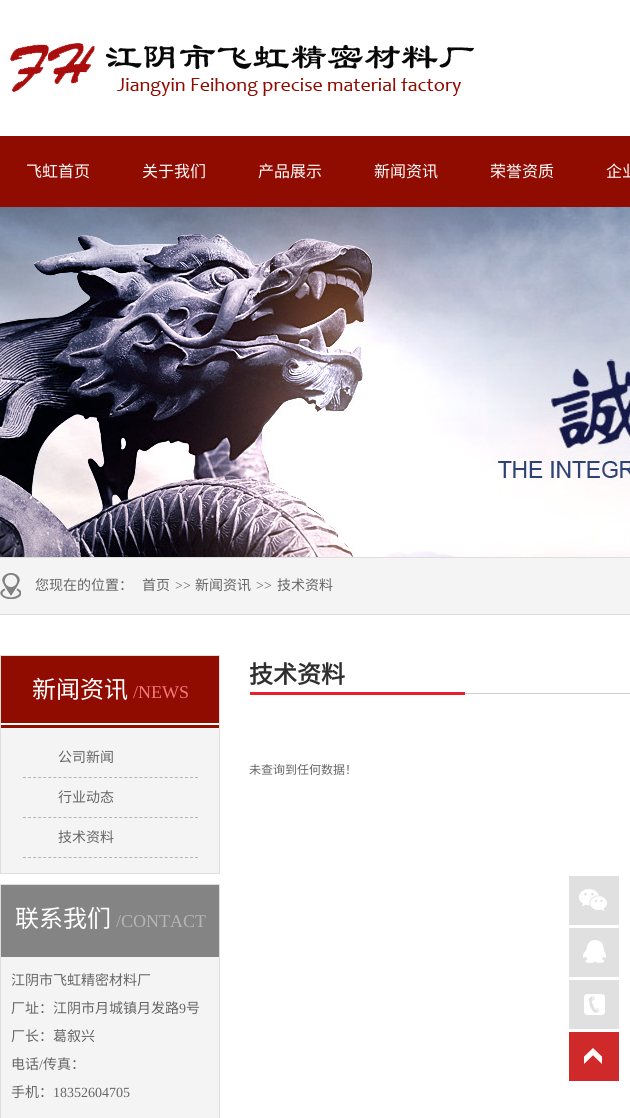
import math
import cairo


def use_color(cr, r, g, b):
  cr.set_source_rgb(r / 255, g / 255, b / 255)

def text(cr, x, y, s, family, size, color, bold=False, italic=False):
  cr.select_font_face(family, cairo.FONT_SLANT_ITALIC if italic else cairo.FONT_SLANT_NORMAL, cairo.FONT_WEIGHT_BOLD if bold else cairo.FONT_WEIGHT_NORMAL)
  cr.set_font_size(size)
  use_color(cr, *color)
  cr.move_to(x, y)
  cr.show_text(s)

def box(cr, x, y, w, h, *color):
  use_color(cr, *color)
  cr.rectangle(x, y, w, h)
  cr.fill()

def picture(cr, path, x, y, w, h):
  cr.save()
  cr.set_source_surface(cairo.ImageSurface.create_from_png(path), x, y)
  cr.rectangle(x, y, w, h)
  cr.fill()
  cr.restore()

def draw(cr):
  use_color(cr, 255, 255, 255)
  cr.paint()
  picture(cr, "img_01.png", 10, 43, 464, 53)
  box(cr, 0, 136, 630, 71, 144, 11, 0)
  picture(cr, "img_02.png", 0, 207, 630, 350)
  box(cr, 0, 558, 630, 56, 244, 244, 244)
  box(cr, 0, 557, 630, 1, 222, 222, 222)
  box(cr, 0, 614, 630, 1, 222, 222, 222)
  picture(cr, "img_03.png", 0, 573, 21, 26)
  box(cr, 1, 728, 218, 145, 244, 244, 244)
  cr.rectangle(0.5, 655.5, 219, 218)
  use_color(cr, 222, 222, 222)
  cr.set_line_width(1)
  cr.stroke()
  picture(cr, "img_04.png", 1, 656, 218, 72)
  cr.new_path()
  cr.move_to(23, 777.5)
  cr.line_to(198, 777.5)
  use_color(cr, 185, 182, 182)
  cr.set_dash([3, 2.06])
  cr.stroke()
  cr.new_path()
  cr.move_to(23, 817.5)
  cr.line_to(198, 817.5)
  cr.stroke()
  cr.new_path()
  cr.move_to(23, 857.5)
  cr.line_to(198, 857.5)
  cr.stroke()
  box(cr, 1, 957, 218, 161, 244, 244, 244)
  cr.rectangle(0.5, 884.5, 219, 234)
  use_color(cr, 222, 222, 222)
  cr.set_dash([])
  cr.stroke()
  box(cr, 1, 885, 218, 72, 132, 132, 132)
  picture(cr, "img_05.png", 250, 692, 380, 3)
  box(cr, 569, 876, 50, 49, 224, 224, 224)
  picture(cr, "img_06.png", 579, 889, 28, 22)
  box(cr, 569, 928, 50, 49, 224, 224, 224)
  picture(cr, "img_07.png", 583, 940, 23, 23)
  box(cr, 569, 980, 50, 49, 224, 224, 224)
  picture(cr, "img_08.png", 584, 994, 21, 21)
  box(cr, 569, 1032, 50, 49, 207, 41, 41)
  picture(cr, "img_09.png", 584, 1048, 18, 16)
  text(cr, 26, 177, "飞虹首页", "Noto Sans CJK SC", 16, (255, 255, 255))
  text(cr, 142, 177, "关于我们", "Noto Sans CJK SC", 16, (255, 255, 255))
  text(cr, 258, 177, "产品展示", "Noto Sans CJK SC", 16, (255, 255, 255))
  text(cr, 374, 177, "新闻资讯", "Noto Sans CJK SC", 16, (255, 255, 255))
  text(cr, 490, 177, "荣誉资质", "Noto Sans CJK SC", 16, (255, 255, 255))
  text(cr, 606, 177, "企业", "Noto Sans CJK SC", 16, (255, 255, 255))
  text(cr, 35, 590, "您现在的位置：", "Noto Sans CJK SC", 14, (102, 102, 102))
  text(cr, 142, 590, "首页", "Noto Sans CJK SC", 14, (102, 102, 102))
  text(cr, 175, 590, ">>", "Liberation Serif", 14, (102, 102, 102))
  text(cr, 195, 590, "新闻资讯", "Noto Sans CJK SC", 14, (102, 102, 102))
  text(cr, 256, 590, ">>", "Liberation Serif", 14, (102, 102, 102))
  text(cr, 277, 590, "技术资料", "Noto Sans CJK SC", 14, (102, 102, 102))
  text(cr, 32, 698, "新闻资讯", "Noto Sans CJK SC", 24, (255, 255, 255))
  text(cr, 133, 698, "/NEWS", "Liberation Serif", 18, (240, 122, 127))
  text(cr, 58, 762, "公司新闻", "Noto Sans CJK SC", 14, (102, 102, 102))
  text(cr, 58, 802, "行业动态", "Noto Sans CJK SC", 14, (102, 102, 102))
  text(cr, 58, 842, "技术资料", "Noto Sans CJK SC", 14, (102, 102, 102))
  text(cr, 15, 927, "联系我们", "Noto Sans CJK SC", 24, (255, 255, 255))
  text(cr, 116, 927, "/CONTACT", "Liberation Serif", 18, (181, 181, 181))
  text(cr, 11, 985, "江阴市飞虹精密材料厂", "Noto Sans CJK SC", 14, (102, 102, 102))
  text(cr, 11, 1013, "厂址：江阴市月城镇月发路", "Noto Sans CJK SC", 14, (102, 102, 102))
  text(cr, 179, 1013, "9", "Liberation Serif", 14, (102, 102, 102))
  text(cr, 186, 1013, "号", "Noto Sans CJK SC", 14, (102, 102, 102))
  text(cr, 11, 1041, "厂长：葛叙兴", "Noto Sans CJK SC", 14, (102, 102, 102))
  text(cr, 11, 1069, "电话", "Noto Sans CJK SC", 14, (102, 102, 102))
  text(cr, 39, 1069, "/", "Liberation Serif", 14, (102, 102, 102))
  text(cr, 43, 1069, "传真：", "Noto Sans CJK SC", 14, (102, 102, 102))
  text(cr, 11, 1097, "手机：", "Noto Sans CJK SC", 14, (102, 102, 102))
  text(cr, 53, 1097, "18352604705", "Liberation Serif", 14, (102, 102, 102))
  text(cr, 249, 683, "技术资料", "Noto Sans CJK SC", 24, (46, 46, 46), bold=True)
  text(cr, 249, 774, "未查询到任何数据！", "Noto Sans CJK SC", 12, (102, 102, 102))


surface = cairo.ImageSurface(cairo.FORMAT_RGB24, 630, 1118)
cr = cairo.Context(surface)
options = cairo.FontOptions()
options.set_hint_metrics(cairo.HINT_METRICS_OFF)
options.set_hint_style(cairo.HINT_STYLE_NONE)
cr.set_font_options(options)
cr.set_miter_limit(4)
draw(cr)
surface.write_to_png("out.png")
